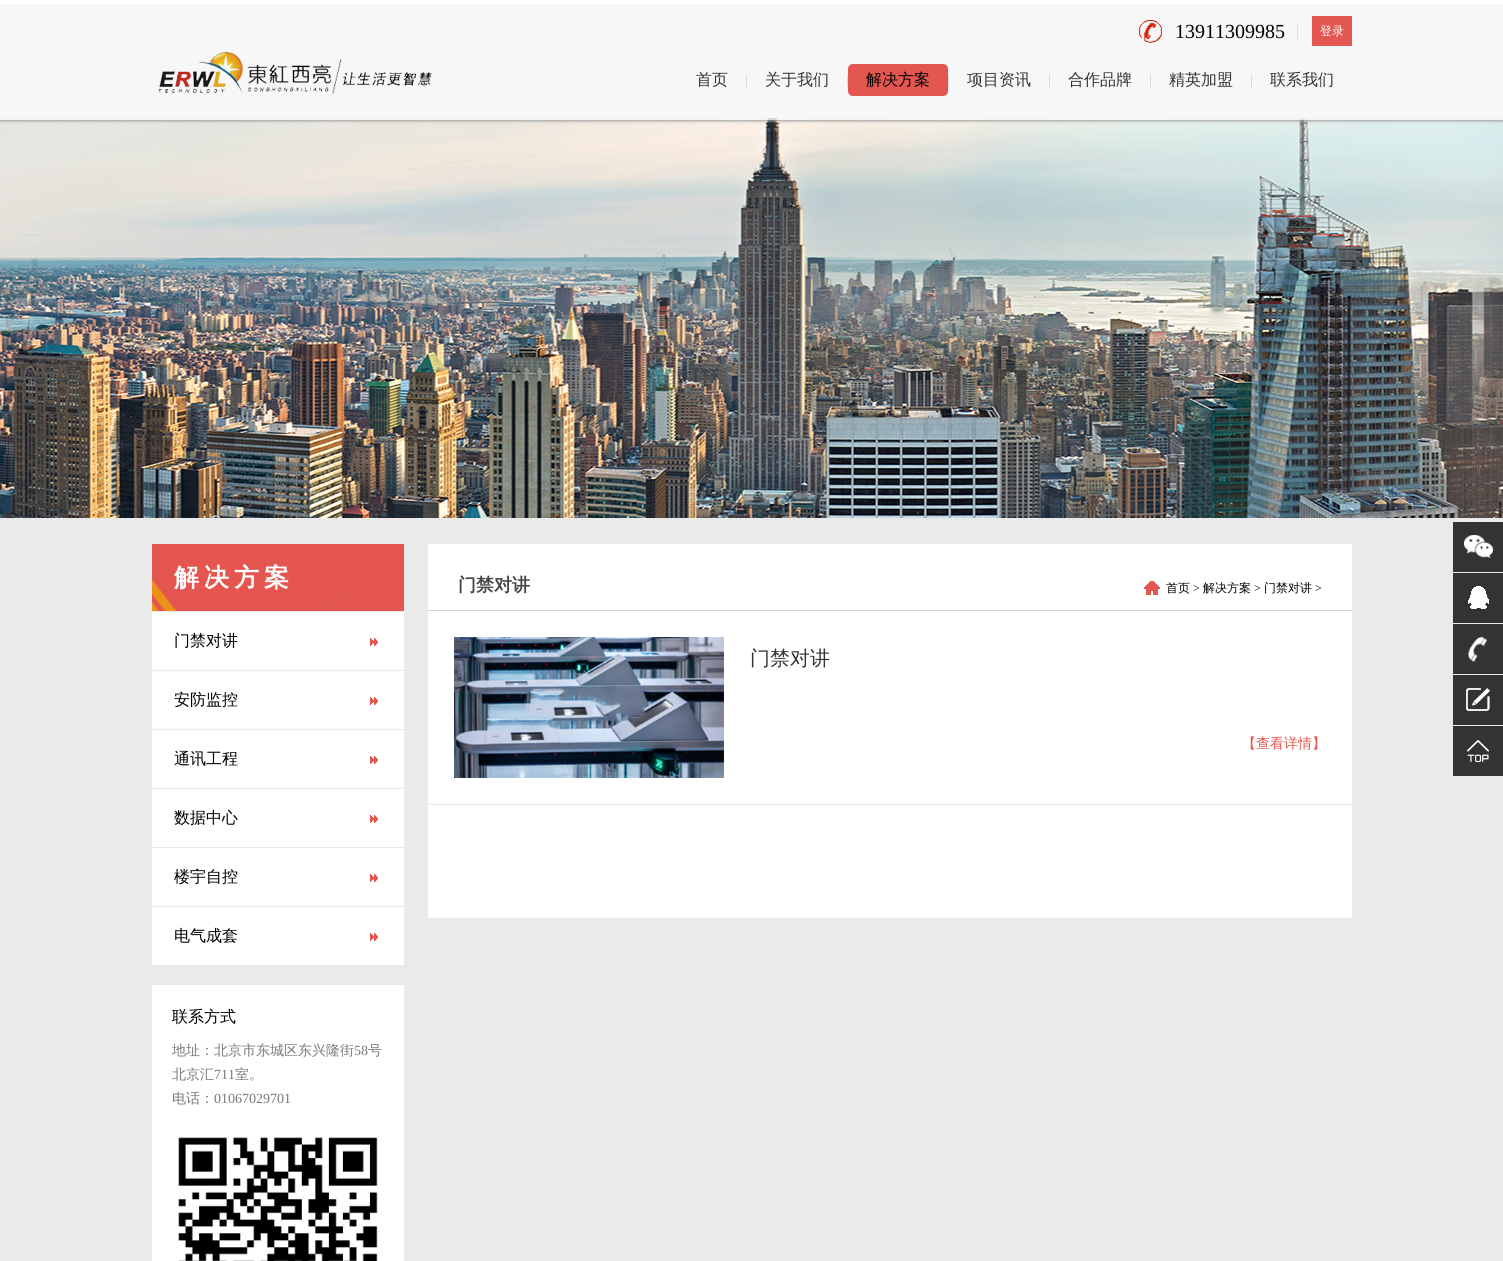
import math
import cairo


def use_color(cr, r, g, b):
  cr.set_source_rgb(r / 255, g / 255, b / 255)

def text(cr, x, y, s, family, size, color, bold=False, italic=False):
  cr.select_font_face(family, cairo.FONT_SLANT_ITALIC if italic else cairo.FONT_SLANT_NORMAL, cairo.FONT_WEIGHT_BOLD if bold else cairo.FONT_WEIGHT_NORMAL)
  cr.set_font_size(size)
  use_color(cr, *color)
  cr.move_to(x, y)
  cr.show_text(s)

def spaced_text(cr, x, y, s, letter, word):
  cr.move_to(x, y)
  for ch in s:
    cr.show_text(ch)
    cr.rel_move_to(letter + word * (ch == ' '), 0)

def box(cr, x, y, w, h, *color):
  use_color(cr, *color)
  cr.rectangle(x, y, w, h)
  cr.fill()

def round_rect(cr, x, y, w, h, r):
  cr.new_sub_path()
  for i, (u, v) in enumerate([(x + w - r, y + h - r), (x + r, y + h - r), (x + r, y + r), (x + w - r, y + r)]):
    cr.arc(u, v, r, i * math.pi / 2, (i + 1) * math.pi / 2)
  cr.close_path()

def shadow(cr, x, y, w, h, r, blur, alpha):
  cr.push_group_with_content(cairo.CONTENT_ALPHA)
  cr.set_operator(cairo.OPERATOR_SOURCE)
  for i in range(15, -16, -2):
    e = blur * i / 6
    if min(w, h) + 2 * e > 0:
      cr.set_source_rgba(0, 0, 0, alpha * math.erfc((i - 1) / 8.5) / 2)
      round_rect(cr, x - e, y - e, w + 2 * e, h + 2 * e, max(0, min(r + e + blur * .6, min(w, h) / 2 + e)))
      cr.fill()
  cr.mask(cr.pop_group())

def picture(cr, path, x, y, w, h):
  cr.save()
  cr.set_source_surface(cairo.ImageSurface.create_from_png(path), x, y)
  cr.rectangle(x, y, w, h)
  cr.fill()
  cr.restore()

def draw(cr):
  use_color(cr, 255, 255, 255)
  cr.paint()
  picture(cr, "img_08.png", 0, 118, 1503, 400)
  cr.save()
  cr.rectangle(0, 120, 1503, 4)
  cr.clip()
  use_color(cr, 153, 153, 153)
  shadow(cr, 0, 1, 1503, 120, 0, 1.5, 1)
  cr.restore()
  cr.set_source_rgba(0.965, 0.965, 0.965, 0.84)
  cr.rectangle(0, 4, 1503, 116)
  cr.fill()
  picture(cr, "img_01.png", 158, 51, 274, 43)
  picture(cr, "img_02.png", 1139, 20, 23, 23)
  box(cr, 1297, 25, 1, 14, 227, 227, 227)
  box(cr, 1312, 16, 40, 30, 228, 86, 80)
  box(cr, 746, 75, 1, 12, 216, 216, 216)
  box(cr, 847, 75, 1, 12, 216, 216, 216)
  use_color(cr, 228, 86, 80)
  round_rect(cr, 848, 64, 100, 32, 5)
  cr.fill()
  box(cr, 948, 75, 1, 12, 216, 216, 216)
  box(cr, 1049, 75, 1, 12, 216, 216, 216)
  box(cr, 1150, 75, 1, 12, 216, 216, 216)
  box(cr, 1251, 75, 1, 12, 216, 216, 216)
  box(cr, 0, 518, 1503, 743, 234, 234, 234)
  box(cr, 1453, 522, 50, 50, 51, 51, 51)
  picture(cr, "img_03.png", 1464, 535, 29, 23)
  box(cr, 1453, 573, 50, 50, 51, 51, 51)
  picture(cr, "img_04.png", 1468, 586, 21, 23)
  box(cr, 1453, 624, 50, 50, 51, 51, 51)
  picture(cr, "img_05.png", 1468, 636, 20, 26)
  box(cr, 1453, 675, 50, 50, 51, 51, 51)
  picture(cr, "img_06.png", 1466, 688, 24, 23)
  box(cr, 1453, 726, 50, 50, 51, 51, 51)
  picture(cr, "img_07.png", 1467, 740, 22, 22)
  picture(cr, "img_09.png", 152, 544, 252, 67)
  box(cr, 152, 612, 252, 58, 255, 255, 255)
  picture(cr, "img_10.png", 370, 638, 8, 8)
  box(cr, 152, 671, 252, 58, 255, 255, 255)
  picture(cr, "img_10.png", 370, 697, 8, 8)
  box(cr, 152, 730, 252, 58, 255, 255, 255)
  picture(cr, "img_10.png", 370, 756, 8, 8)
  box(cr, 152, 789, 252, 58, 255, 255, 255)
  picture(cr, "img_10.png", 370, 815, 8, 8)
  box(cr, 152, 848, 252, 58, 255, 255, 255)
  picture(cr, "img_10.png", 370, 874, 8, 8)
  box(cr, 152, 907, 252, 58, 255, 255, 255)
  picture(cr, "img_10.png", 370, 933, 8, 8)
  box(cr, 152, 985, 252, 276, 255, 255, 255)
  picture(cr, "img_11.png", 178, 1137, 200, 124)
  box(cr, 428, 544, 924, 374, 255, 255, 255)
  box(cr, 428, 610, 924, 1, 208, 208, 208)
  picture(cr, "img_12.png", 1144, 581, 16, 14)
  box(cr, 428, 804, 924, 1, 234, 234, 234)
  picture(cr, "img_13.png", 454, 637, 270, 141)
  text(cr, 1175, 38, "13911309985", "Liberation Serif", 20, (0, 0, 0))
  text(cr, 1320, 35, "登录", "WenQuanYi Zen Hei Medium", 12, (255, 255, 255))
  text(cr, 696, 85, "首页", "WenQuanYi Zen Hei Medium", 16, (51, 51, 51))
  text(cr, 765, 85, "关于我们", "WenQuanYi Zen Hei Medium", 16, (51, 51, 51))
  text(cr, 866, 85, "解决方案", "WenQuanYi Zen Hei Medium", 16, (0, 0, 0))
  text(cr, 967, 85, "项目资讯", "WenQuanYi Zen Hei Medium", 16, (51, 51, 51))
  text(cr, 1068, 85, "合作品牌", "WenQuanYi Zen Hei Medium", 16, (51, 51, 51))
  text(cr, 1169, 85, "精英加盟", "WenQuanYi Zen Hei Medium", 16, (51, 51, 51))
  text(cr, 1270, 85, "联系我们", "WenQuanYi Zen Hei Medium", 16, (51, 51, 51))
  cr.select_font_face("WenQuanYi Zen Hei", cairo.FONT_SLANT_NORMAL, cairo.FONT_WEIGHT_BOLD)
  cr.set_font_size(25)
  use_color(cr, 255, 255, 255)
  spaced_text(cr, 174, 586, "解决方案", 5, 0)
  text(cr, 174, 646, "门禁对讲", "WenQuanYi Zen Hei Medium", 16, (0, 0, 0))
  text(cr, 174, 705, "安防监控", "WenQuanYi Zen Hei Medium", 16, (0, 0, 0))
  text(cr, 174, 764, "通讯工程", "WenQuanYi Zen Hei Medium", 16, (0, 0, 0))
  text(cr, 174, 823, "数据中心", "WenQuanYi Zen Hei Medium", 16, (0, 0, 0))
  text(cr, 174, 882, "楼宇自控", "WenQuanYi Zen Hei Medium", 16, (0, 0, 0))
  text(cr, 174, 941, "电气成套", "WenQuanYi Zen Hei Medium", 16, (0, 0, 0))
  text(cr, 172, 1022, "联系方式", "WenQuanYi Zen Hei Medium", 16, (0, 0, 0))
  text(cr, 172, 1055, "地址：北京市东城区东兴隆街", "WenQuanYi Zen Hei Medium", 14, (121, 121, 121))
  text(cr, 354, 1055, "58", "Liberation Serif", 14, (121, 121, 121))
  text(cr, 368, 1055, "号", "WenQuanYi Zen Hei Medium", 14, (121, 121, 121))
  text(cr, 172, 1079, "北京汇", "WenQuanYi Zen Hei Medium", 14, (121, 121, 121))
  text(cr, 214, 1079, "711", "Liberation Serif", 14, (121, 121, 121))
  text(cr, 235, 1079, "室。", "WenQuanYi Zen Hei Medium", 14, (121, 121, 121))
  text(cr, 172, 1103, "电话：", "WenQuanYi Zen Hei Medium", 14, (121, 121, 121))
  text(cr, 214, 1103, "01067029701", "Liberation Serif", 14, (121, 121, 121))
  text(cr, 458, 591, "门禁对讲", "WenQuanYi Zen Hei", 18, (70, 70, 70), bold=True)
  text(cr, 1166, 592, "首页", "WenQuanYi Zen Hei Medium", 12, (0, 0, 0))
  text(cr, 1193, 592, ">", "Liberation Serif", 12, (0, 0, 0))
  text(cr, 1203, 592, "解决方案", "WenQuanYi Zen Hei Medium", 12, (0, 0, 0))
  text(cr, 1254, 592, ">", "Liberation Serif", 12, (0, 0, 0))
  text(cr, 1264, 592, "门禁对讲", "WenQuanYi Zen Hei Medium", 12, (0, 0, 0))
  text(cr, 1315, 592, ">", "Liberation Serif", 12, (0, 0, 0))
  text(cr, 750, 665, "门禁对讲", "WenQuanYi Zen Hei Medium", 20, (51, 51, 51))
  text(cr, 1242, 748, "【查看详情】", "WenQuanYi Zen Hei Medium", 14, (228, 86, 80))


surface = cairo.ImageSurface(cairo.FORMAT_RGB24, 1503, 1261)
cr = cairo.Context(surface)
options = cairo.FontOptions()
options.set_hint_metrics(cairo.HINT_METRICS_OFF)
options.set_hint_style(cairo.HINT_STYLE_NONE)
cr.set_font_options(options)
cr.set_miter_limit(4)
draw(cr)
surface.write_to_png("out.png")
